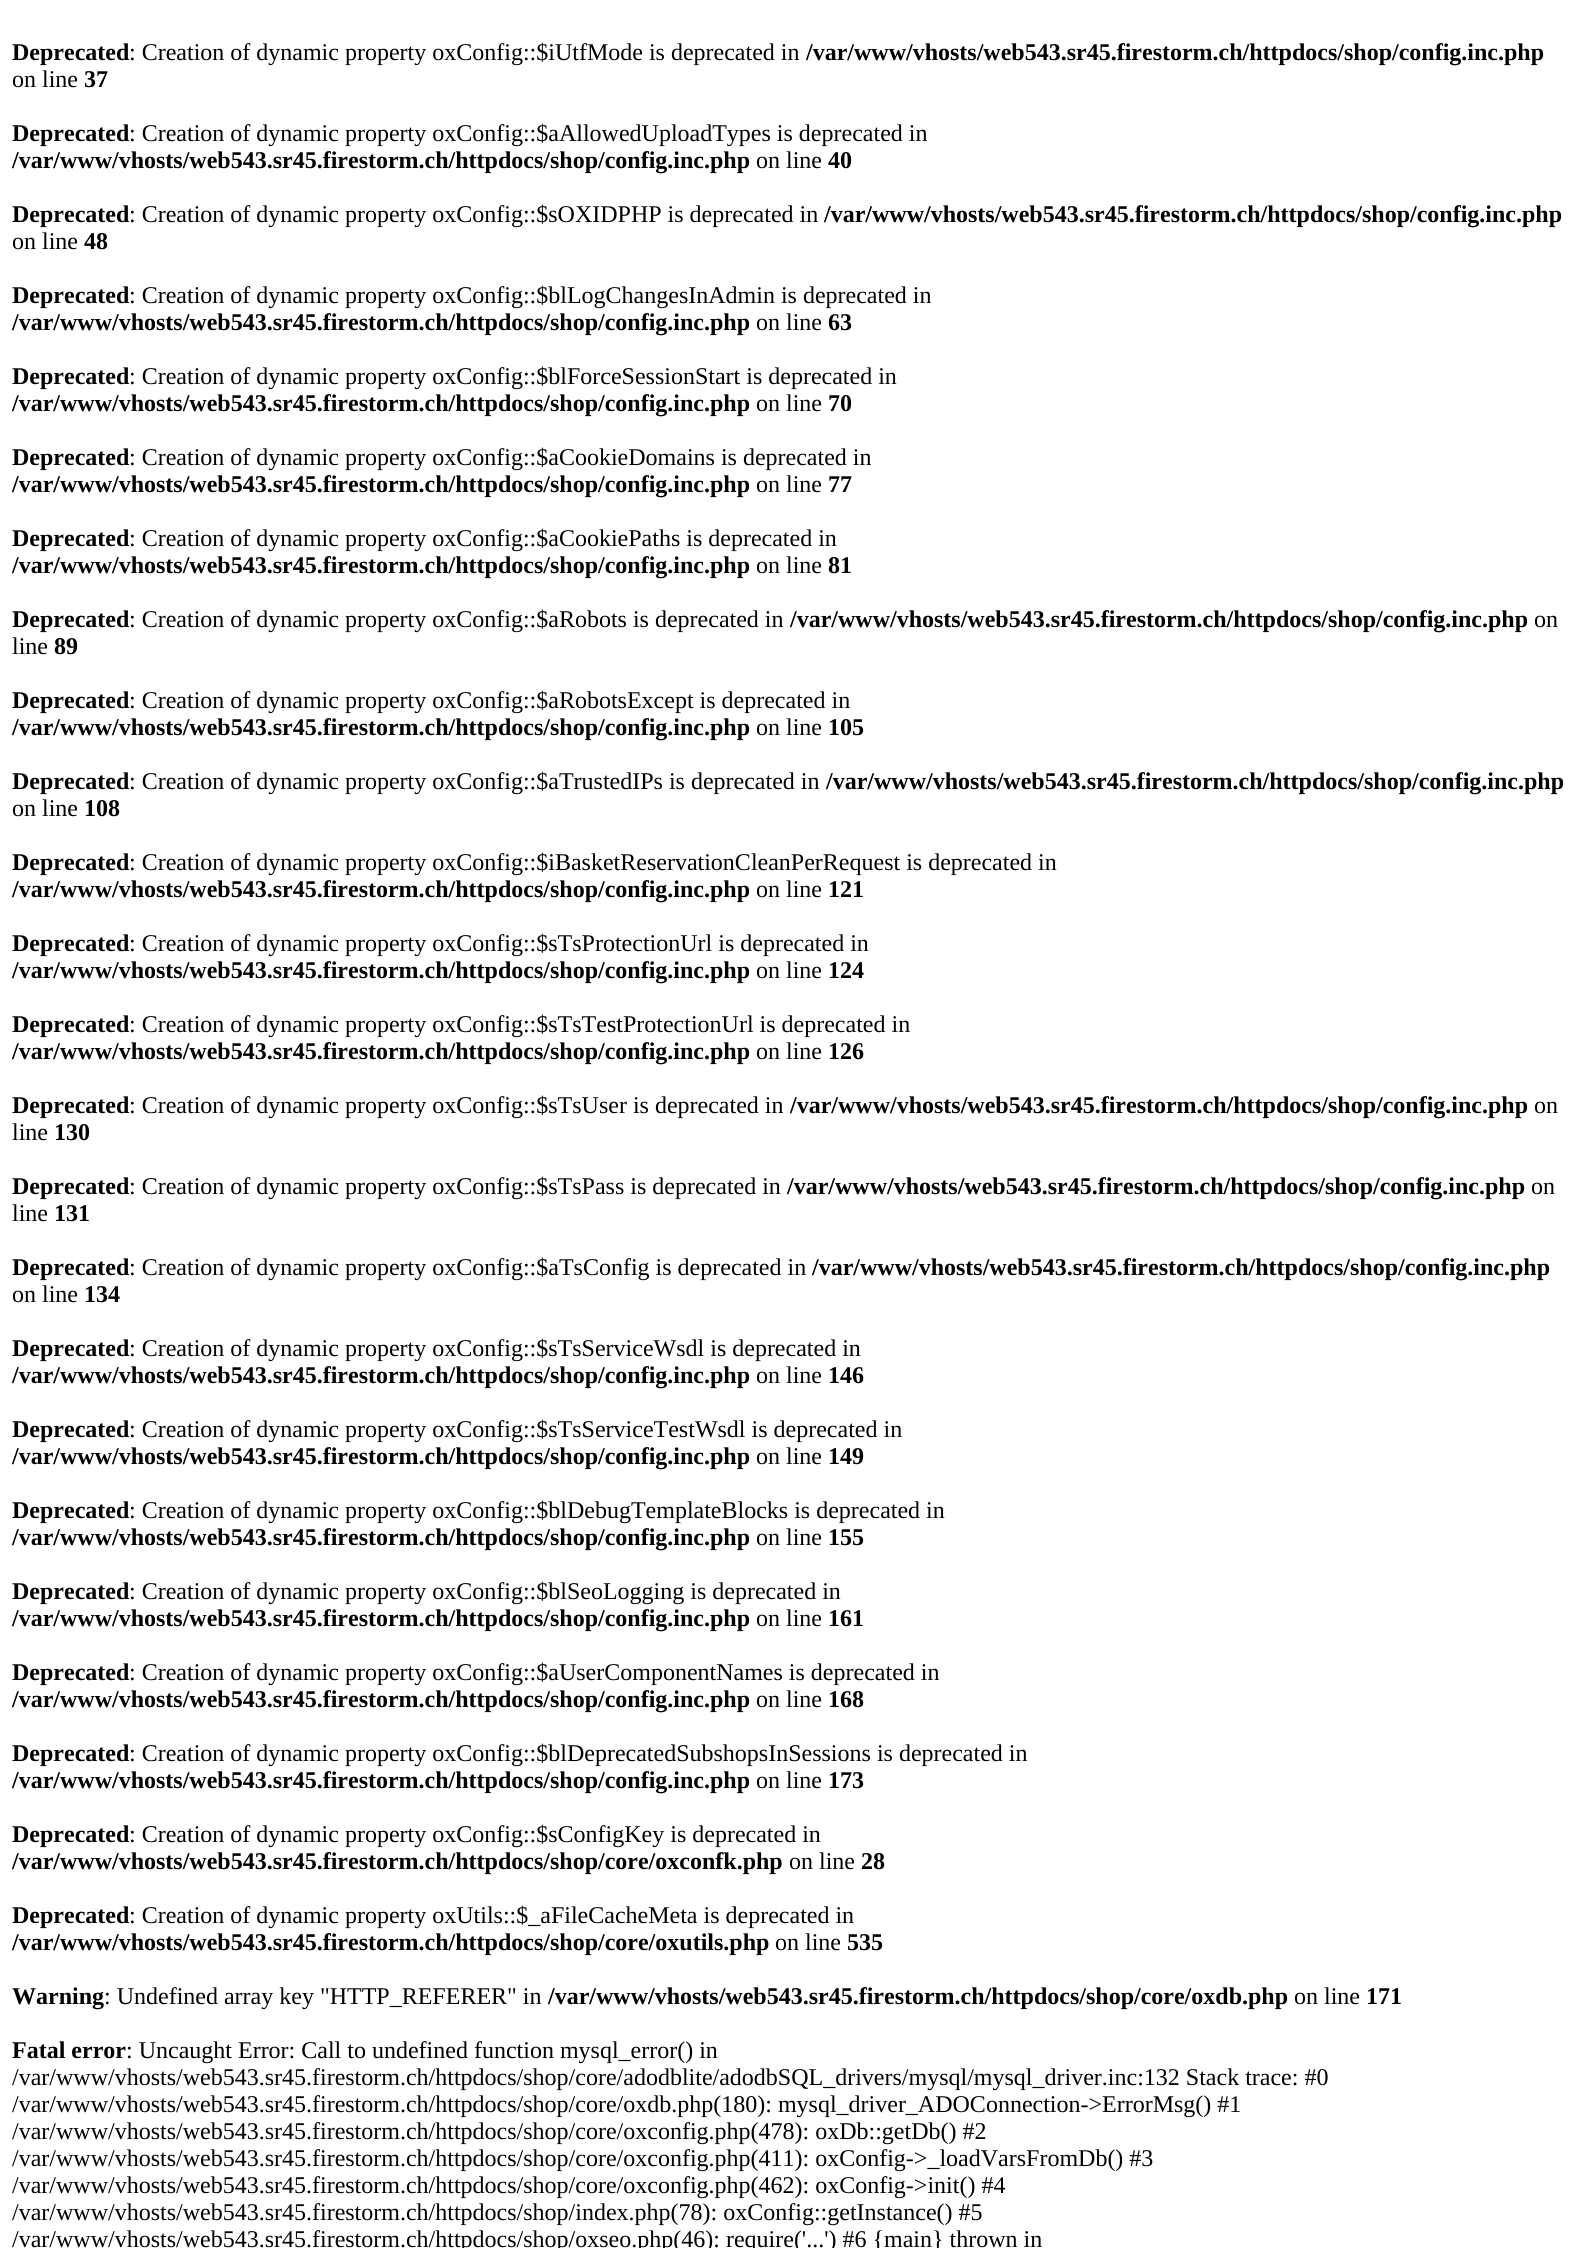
import math
import cairo


def use_color(cr, r, g, b):
  cr.set_source_rgb(r / 255, g / 255, b / 255)

def text(cr, x, y, s, family, size, color, bold=False, italic=False):
  cr.select_font_face(family, cairo.FONT_SLANT_ITALIC if italic else cairo.FONT_SLANT_NORMAL, cairo.FONT_WEIGHT_BOLD if bold else cairo.FONT_WEIGHT_NORMAL)
  cr.set_font_size(size)
  use_color(cr, *color)
  cr.move_to(x, y)
  cr.show_text(s)

def draw(cr):
  use_color(cr, 255, 255, 255)
  cr.paint()
  text(cr, 12, 60, "Deprecated", "Liberation Serif", 24, (0, 0, 0), bold=True)
  text(cr, 129, 60, ": Creation of dynamic property oxConfig::$iUtfMode is deprecated in", "Liberation Serif", 24, (0, 0, 0))
  text(cr, 806, 60, "/var/www/vhosts/web543.sr45.firestorm.ch/httpdocs/shop/config.inc.php", "Liberation Serif", 24, (0, 0, 0), bold=True)
  text(cr, 12, 87, "on line", "Liberation Serif", 24, (0, 0, 0))
  text(cr, 84, 87, "37", "Liberation Serif", 24, (0, 0, 0), bold=True)
  text(cr, 12, 141, "Deprecated", "Liberation Serif", 24, (0, 0, 0), bold=True)
  text(cr, 129, 141, ": Creation of dynamic property oxConfig::$aAllowedUploadTypes is deprecated in", "Liberation Serif", 24, (0, 0, 0))
  text(cr, 12, 168, "/var/www/vhosts/web543.sr45.firestorm.ch/httpdocs/shop/config.inc.php", "Liberation Serif", 24, (0, 0, 0), bold=True)
  text(cr, 756, 168, "on line", "Liberation Serif", 24, (0, 0, 0))
  text(cr, 828, 168, "40", "Liberation Serif", 24, (0, 0, 0), bold=True)
  text(cr, 12, 222, "Deprecated", "Liberation Serif", 24, (0, 0, 0), bold=True)
  text(cr, 129, 222, ": Creation of dynamic property oxConfig::$sOXIDPHP is deprecated in", "Liberation Serif", 24, (0, 0, 0))
  text(cr, 824, 222, "/var/www/vhosts/web543.sr45.firestorm.ch/httpdocs/shop/config.inc.php", "Liberation Serif", 24, (0, 0, 0), bold=True)
  text(cr, 12, 249, "on line", "Liberation Serif", 24, (0, 0, 0))
  text(cr, 84, 249, "48", "Liberation Serif", 24, (0, 0, 0), bold=True)
  text(cr, 12, 303, "Deprecated", "Liberation Serif", 24, (0, 0, 0), bold=True)
  text(cr, 129, 303, ": Creation of dynamic property oxConfig::$blLogChangesInAdmin is deprecated in", "Liberation Serif", 24, (0, 0, 0))
  text(cr, 12, 330, "/var/www/vhosts/web543.sr45.firestorm.ch/httpdocs/shop/config.inc.php", "Liberation Serif", 24, (0, 0, 0), bold=True)
  text(cr, 756, 330, "on line", "Liberation Serif", 24, (0, 0, 0))
  text(cr, 828, 330, "63", "Liberation Serif", 24, (0, 0, 0), bold=True)
  text(cr, 12, 384, "Deprecated", "Liberation Serif", 24, (0, 0, 0), bold=True)
  text(cr, 129, 384, ": Creation of dynamic property oxConfig::$blForceSessionStart is deprecated in", "Liberation Serif", 24, (0, 0, 0))
  text(cr, 12, 411, "/var/www/vhosts/web543.sr45.firestorm.ch/httpdocs/shop/config.inc.php", "Liberation Serif", 24, (0, 0, 0), bold=True)
  text(cr, 756, 411, "on line", "Liberation Serif", 24, (0, 0, 0))
  text(cr, 828, 411, "70", "Liberation Serif", 24, (0, 0, 0), bold=True)
  text(cr, 12, 465, "Deprecated", "Liberation Serif", 24, (0, 0, 0), bold=True)
  text(cr, 129, 465, ": Creation of dynamic property oxConfig::$aCookieDomains is deprecated in", "Liberation Serif", 24, (0, 0, 0))
  text(cr, 12, 492, "/var/www/vhosts/web543.sr45.firestorm.ch/httpdocs/shop/config.inc.php", "Liberation Serif", 24, (0, 0, 0), bold=True)
  text(cr, 756, 492, "on line", "Liberation Serif", 24, (0, 0, 0))
  text(cr, 828, 492, "77", "Liberation Serif", 24, (0, 0, 0), bold=True)
  text(cr, 12, 546, "Deprecated", "Liberation Serif", 24, (0, 0, 0), bold=True)
  text(cr, 129, 546, ": Creation of dynamic property oxConfig::$aCookiePaths is deprecated in", "Liberation Serif", 24, (0, 0, 0))
  text(cr, 12, 573, "/var/www/vhosts/web543.sr45.firestorm.ch/httpdocs/shop/config.inc.php", "Liberation Serif", 24, (0, 0, 0), bold=True)
  text(cr, 756, 573, "on line", "Liberation Serif", 24, (0, 0, 0))
  text(cr, 828, 573, "81", "Liberation Serif", 24, (0, 0, 0), bold=True)
  text(cr, 12, 627, "Deprecated", "Liberation Serif", 24, (0, 0, 0), bold=True)
  text(cr, 129, 627, ": Creation of dynamic property oxConfig::$aRobots is deprecated in", "Liberation Serif", 24, (0, 0, 0))
  text(cr, 790, 627, "/var/www/vhosts/web543.sr45.firestorm.ch/httpdocs/shop/config.inc.php", "Liberation Serif", 24, (0, 0, 0), bold=True)
  text(cr, 1534, 627, "on", "Liberation Serif", 24, (0, 0, 0))
  text(cr, 12, 654, "line", "Liberation Serif", 24, (0, 0, 0))
  text(cr, 54, 654, "89", "Liberation Serif", 24, (0, 0, 0), bold=True)
  text(cr, 12, 708, "Deprecated", "Liberation Serif", 24, (0, 0, 0), bold=True)
  text(cr, 129, 708, ": Creation of dynamic property oxConfig::$aRobotsExcept is deprecated in", "Liberation Serif", 24, (0, 0, 0))
  text(cr, 12, 735, "/var/www/vhosts/web543.sr45.firestorm.ch/httpdocs/shop/config.inc.php", "Liberation Serif", 24, (0, 0, 0), bold=True)
  text(cr, 756, 735, "on line", "Liberation Serif", 24, (0, 0, 0))
  text(cr, 828, 735, "105", "Liberation Serif", 24, (0, 0, 0), bold=True)
  text(cr, 12, 789, "Deprecated", "Liberation Serif", 24, (0, 0, 0), bold=True)
  text(cr, 129, 789, ": Creation of dynamic property oxConfig::$aTrustedIPs is deprecated in", "Liberation Serif", 24, (0, 0, 0))
  text(cr, 826, 789, "/var/www/vhosts/web543.sr45.firestorm.ch/httpdocs/shop/config.inc.php", "Liberation Serif", 24, (0, 0, 0), bold=True)
  text(cr, 12, 816, "on line", "Liberation Serif", 24, (0, 0, 0))
  text(cr, 84, 816, "108", "Liberation Serif", 24, (0, 0, 0), bold=True)
  text(cr, 12, 870, "Deprecated", "Liberation Serif", 24, (0, 0, 0), bold=True)
  text(cr, 129, 870, ": Creation of dynamic property oxConfig::$iBasketReservationCleanPerRequest is deprecated in", "Liberation Serif", 24, (0, 0, 0))
  text(cr, 12, 897, "/var/www/vhosts/web543.sr45.firestorm.ch/httpdocs/shop/config.inc.php", "Liberation Serif", 24, (0, 0, 0), bold=True)
  text(cr, 756, 897, "on line", "Liberation Serif", 24, (0, 0, 0))
  text(cr, 828, 897, "121", "Liberation Serif", 24, (0, 0, 0), bold=True)
  text(cr, 12, 951, "Deprecated", "Liberation Serif", 24, (0, 0, 0), bold=True)
  text(cr, 129, 951, ": Creation of dynamic property oxConfig::$sTsProtectionUrl is deprecated in", "Liberation Serif", 24, (0, 0, 0))
  text(cr, 12, 978, "/var/www/vhosts/web543.sr45.firestorm.ch/httpdocs/shop/config.inc.php", "Liberation Serif", 24, (0, 0, 0), bold=True)
  text(cr, 756, 978, "on line", "Liberation Serif", 24, (0, 0, 0))
  text(cr, 828, 978, "124", "Liberation Serif", 24, (0, 0, 0), bold=True)
  text(cr, 12, 1032, "Deprecated", "Liberation Serif", 24, (0, 0, 0), bold=True)
  text(cr, 129, 1032, ": Creation of dynamic property oxConfig::$sTsTestProtectionUrl is deprecated in", "Liberation Serif", 24, (0, 0, 0))
  text(cr, 12, 1059, "/var/www/vhosts/web543.sr45.firestorm.ch/httpdocs/shop/config.inc.php", "Liberation Serif", 24, (0, 0, 0), bold=True)
  text(cr, 756, 1059, "on line", "Liberation Serif", 24, (0, 0, 0))
  text(cr, 828, 1059, "126", "Liberation Serif", 24, (0, 0, 0), bold=True)
  text(cr, 12, 1113, "Deprecated", "Liberation Serif", 24, (0, 0, 0), bold=True)
  text(cr, 129, 1113, ": Creation of dynamic property oxConfig::$sTsUser is deprecated in", "Liberation Serif", 24, (0, 0, 0))
  text(cr, 790, 1113, "/var/www/vhosts/web543.sr45.firestorm.ch/httpdocs/shop/config.inc.php", "Liberation Serif", 24, (0, 0, 0), bold=True)
  text(cr, 1534, 1113, "on", "Liberation Serif", 24, (0, 0, 0))
  text(cr, 12, 1140, "line", "Liberation Serif", 24, (0, 0, 0))
  text(cr, 54, 1140, "130", "Liberation Serif", 24, (0, 0, 0), bold=True)
  text(cr, 12, 1194, "Deprecated", "Liberation Serif", 24, (0, 0, 0), bold=True)
  text(cr, 129, 1194, ": Creation of dynamic property oxConfig::$sTsPass is deprecated in", "Liberation Serif", 24, (0, 0, 0))
  text(cr, 787, 1194, "/var/www/vhosts/web543.sr45.firestorm.ch/httpdocs/shop/config.inc.php", "Liberation Serif", 24, (0, 0, 0), bold=True)
  text(cr, 1531, 1194, "on", "Liberation Serif", 24, (0, 0, 0))
  text(cr, 12, 1221, "line", "Liberation Serif", 24, (0, 0, 0))
  text(cr, 54, 1221, "131", "Liberation Serif", 24, (0, 0, 0), bold=True)
  text(cr, 12, 1275, "Deprecated", "Liberation Serif", 24, (0, 0, 0), bold=True)
  text(cr, 129, 1275, ": Creation of dynamic property oxConfig::$aTsConfig is deprecated in", "Liberation Serif", 24, (0, 0, 0))
  text(cr, 812, 1275, "/var/www/vhosts/web543.sr45.firestorm.ch/httpdocs/shop/config.inc.php", "Liberation Serif", 24, (0, 0, 0), bold=True)
  text(cr, 12, 1302, "on line", "Liberation Serif", 24, (0, 0, 0))
  text(cr, 84, 1302, "134", "Liberation Serif", 24, (0, 0, 0), bold=True)
  text(cr, 12, 1356, "Deprecated", "Liberation Serif", 24, (0, 0, 0), bold=True)
  text(cr, 129, 1356, ": Creation of dynamic property oxConfig::$sTsServiceWsdl is deprecated in", "Liberation Serif", 24, (0, 0, 0))
  text(cr, 12, 1383, "/var/www/vhosts/web543.sr45.firestorm.ch/httpdocs/shop/config.inc.php", "Liberation Serif", 24, (0, 0, 0), bold=True)
  text(cr, 756, 1383, "on line", "Liberation Serif", 24, (0, 0, 0))
  text(cr, 828, 1383, "146", "Liberation Serif", 24, (0, 0, 0), bold=True)
  text(cr, 12, 1437, "Deprecated", "Liberation Serif", 24, (0, 0, 0), bold=True)
  text(cr, 129, 1437, ": Creation of dynamic property oxConfig::$sTsServiceTestWsdl is deprecated in", "Liberation Serif", 24, (0, 0, 0))
  text(cr, 12, 1464, "/var/www/vhosts/web543.sr45.firestorm.ch/httpdocs/shop/config.inc.php", "Liberation Serif", 24, (0, 0, 0), bold=True)
  text(cr, 756, 1464, "on line", "Liberation Serif", 24, (0, 0, 0))
  text(cr, 828, 1464, "149", "Liberation Serif", 24, (0, 0, 0), bold=True)
  text(cr, 12, 1518, "Deprecated", "Liberation Serif", 24, (0, 0, 0), bold=True)
  text(cr, 129, 1518, ": Creation of dynamic property oxConfig::$blDebugTemplateBlocks is deprecated in", "Liberation Serif", 24, (0, 0, 0))
  text(cr, 12, 1545, "/var/www/vhosts/web543.sr45.firestorm.ch/httpdocs/shop/config.inc.php", "Liberation Serif", 24, (0, 0, 0), bold=True)
  text(cr, 756, 1545, "on line", "Liberation Serif", 24, (0, 0, 0))
  text(cr, 828, 1545, "155", "Liberation Serif", 24, (0, 0, 0), bold=True)
  text(cr, 12, 1599, "Deprecated", "Liberation Serif", 24, (0, 0, 0), bold=True)
  text(cr, 129, 1599, ": Creation of dynamic property oxConfig::$blSeoLogging is deprecated in", "Liberation Serif", 24, (0, 0, 0))
  text(cr, 12, 1626, "/var/www/vhosts/web543.sr45.firestorm.ch/httpdocs/shop/config.inc.php", "Liberation Serif", 24, (0, 0, 0), bold=True)
  text(cr, 756, 1626, "on line", "Liberation Serif", 24, (0, 0, 0))
  text(cr, 828, 1626, "161", "Liberation Serif", 24, (0, 0, 0), bold=True)
  text(cr, 12, 1680, "Deprecated", "Liberation Serif", 24, (0, 0, 0), bold=True)
  text(cr, 129, 1680, ": Creation of dynamic property oxConfig::$aUserComponentNames is deprecated in", "Liberation Serif", 24, (0, 0, 0))
  text(cr, 12, 1707, "/var/www/vhosts/web543.sr45.firestorm.ch/httpdocs/shop/config.inc.php", "Liberation Serif", 24, (0, 0, 0), bold=True)
  text(cr, 756, 1707, "on line", "Liberation Serif", 24, (0, 0, 0))
  text(cr, 828, 1707, "168", "Liberation Serif", 24, (0, 0, 0), bold=True)
  text(cr, 12, 1761, "Deprecated", "Liberation Serif", 24, (0, 0, 0), bold=True)
  text(cr, 129, 1761, ": Creation of dynamic property oxConfig::$blDeprecatedSubshopsInSessions is deprecated in", "Liberation Serif", 24, (0, 0, 0))
  text(cr, 12, 1788, "/var/www/vhosts/web543.sr45.firestorm.ch/httpdocs/shop/config.inc.php", "Liberation Serif", 24, (0, 0, 0), bold=True)
  text(cr, 756, 1788, "on line", "Liberation Serif", 24, (0, 0, 0))
  text(cr, 828, 1788, "173", "Liberation Serif", 24, (0, 0, 0), bold=True)
  text(cr, 12, 1842, "Deprecated", "Liberation Serif", 24, (0, 0, 0), bold=True)
  text(cr, 129, 1842, ": Creation of dynamic property oxConfig::$sConfigKey is deprecated in", "Liberation Serif", 24, (0, 0, 0))
  text(cr, 12, 1869, "/var/www/vhosts/web543.sr45.firestorm.ch/httpdocs/shop/core/oxconfk.php", "Liberation Serif", 24, (0, 0, 0), bold=True)
  text(cr, 789, 1869, "on line", "Liberation Serif", 24, (0, 0, 0))
  text(cr, 861, 1869, "28", "Liberation Serif", 24, (0, 0, 0), bold=True)
  text(cr, 12, 1923, "Deprecated", "Liberation Serif", 24, (0, 0, 0), bold=True)
  text(cr, 129, 1923, ": Creation of dynamic property oxUtils::$_aFileCacheMeta is deprecated in", "Liberation Serif", 24, (0, 0, 0))
  text(cr, 12, 1950, "/var/www/vhosts/web543.sr45.firestorm.ch/httpdocs/shop/core/oxutils.php", "Liberation Serif", 24, (0, 0, 0), bold=True)
  text(cr, 775, 1950, "on line", "Liberation Serif", 24, (0, 0, 0))
  text(cr, 847, 1950, "535", "Liberation Serif", 24, (0, 0, 0), bold=True)
  text(cr, 12, 2004, "Warning", "Liberation Serif", 24, (0, 0, 0), bold=True)
  text(cr, 104, 2004, ": Undefined array key \"HTTP_REFERER\" in", "Liberation Serif", 24, (0, 0, 0))
  text(cr, 548, 2004, "/var/www/vhosts/web543.sr45.firestorm.ch/httpdocs/shop/core/oxdb.php", "Liberation Serif", 24, (0, 0, 0), bold=True)
  text(cr, 1294, 2004, "on line", "Liberation Serif", 24, (0, 0, 0))
  text(cr, 1366, 2004, "171", "Liberation Serif", 24, (0, 0, 0), bold=True)
  text(cr, 12, 2058, "Fatal error", "Liberation Serif", 24, (0, 0, 0), bold=True)
  text(cr, 126, 2058, ": Uncaught Error: Call to undefined function mysql_error() in", "Liberation Serif", 24, (0, 0, 0))
  text(cr, 12, 2085, "/var/www/vhosts/web543.sr45.firestorm.ch/httpdocs/shop/core/adodblite/adodbSQL_drivers/mysql/mysql_driver.inc:132 Stack trace: #0", "Liberation Serif", 24, (0, 0, 0))
  text(cr, 12, 2112, "/var/www/vhosts/web543.sr45.firestorm.ch/httpdocs/shop/core/oxdb.php(180): mysql_driver_ADOConnection->ErrorMsg() #1", "Liberation Serif", 24, (0, 0, 0))
  text(cr, 12, 2139, "/var/www/vhosts/web543.sr45.firestorm.ch/httpdocs/shop/core/oxconfig.php(478): oxDb::getDb() #2", "Liberation Serif", 24, (0, 0, 0))
  text(cr, 12, 2166, "/var/www/vhosts/web543.sr45.firestorm.ch/httpdocs/shop/core/oxconfig.php(411): oxConfig->_loadVarsFromDb() #3", "Liberation Serif", 24, (0, 0, 0))
  text(cr, 12, 2193, "/var/www/vhosts/web543.sr45.firestorm.ch/httpdocs/shop/core/oxconfig.php(462): oxConfig->init() #4", "Liberation Serif", 24, (0, 0, 0))
  text(cr, 12, 2220, "/var/www/vhosts/web543.sr45.firestorm.ch/httpdocs/shop/index.php(78): oxConfig::getInstance() #5", "Liberation Serif", 24, (0, 0, 0))
  text(cr, 12, 2247, "/var/www/vhosts/web543.sr45.firestorm.ch/httpdocs/shop/oxseo.php(46): require('...') #6 {main} thrown in", "Liberation Serif", 24, (0, 0, 0))


surface = cairo.ImageSurface(cairo.FORMAT_RGB24, 1578, 2248)
cr = cairo.Context(surface)
options = cairo.FontOptions()
options.set_hint_metrics(cairo.HINT_METRICS_OFF)
options.set_hint_style(cairo.HINT_STYLE_NONE)
cr.set_font_options(options)
cr.set_miter_limit(4)
draw(cr)
surface.write_to_png("out.png")
